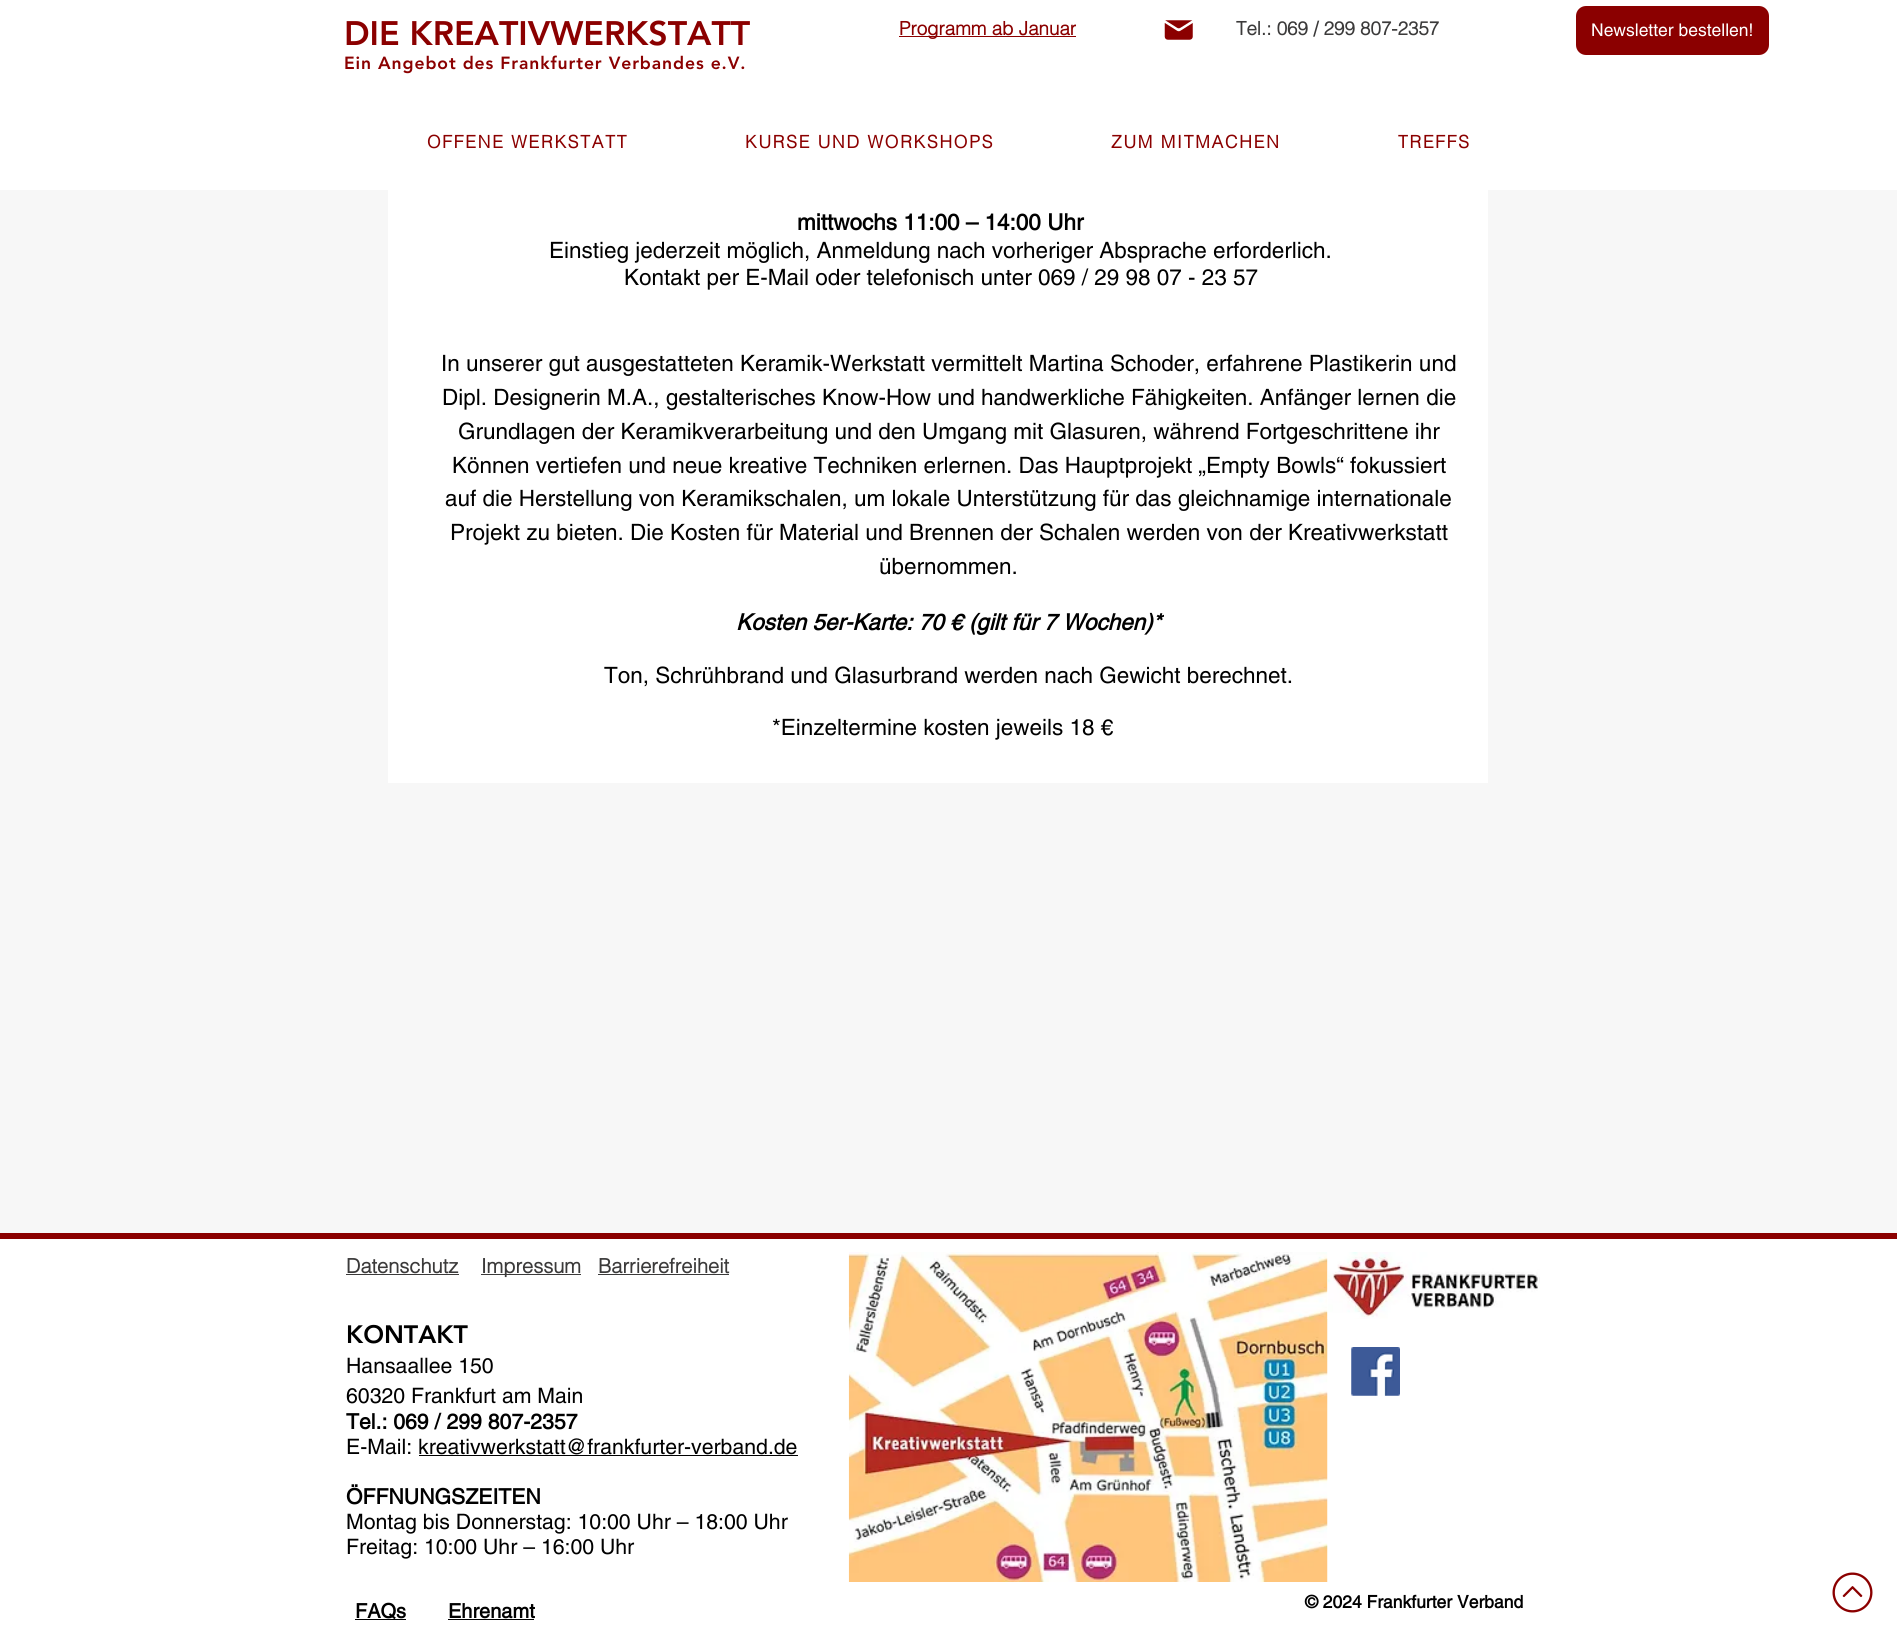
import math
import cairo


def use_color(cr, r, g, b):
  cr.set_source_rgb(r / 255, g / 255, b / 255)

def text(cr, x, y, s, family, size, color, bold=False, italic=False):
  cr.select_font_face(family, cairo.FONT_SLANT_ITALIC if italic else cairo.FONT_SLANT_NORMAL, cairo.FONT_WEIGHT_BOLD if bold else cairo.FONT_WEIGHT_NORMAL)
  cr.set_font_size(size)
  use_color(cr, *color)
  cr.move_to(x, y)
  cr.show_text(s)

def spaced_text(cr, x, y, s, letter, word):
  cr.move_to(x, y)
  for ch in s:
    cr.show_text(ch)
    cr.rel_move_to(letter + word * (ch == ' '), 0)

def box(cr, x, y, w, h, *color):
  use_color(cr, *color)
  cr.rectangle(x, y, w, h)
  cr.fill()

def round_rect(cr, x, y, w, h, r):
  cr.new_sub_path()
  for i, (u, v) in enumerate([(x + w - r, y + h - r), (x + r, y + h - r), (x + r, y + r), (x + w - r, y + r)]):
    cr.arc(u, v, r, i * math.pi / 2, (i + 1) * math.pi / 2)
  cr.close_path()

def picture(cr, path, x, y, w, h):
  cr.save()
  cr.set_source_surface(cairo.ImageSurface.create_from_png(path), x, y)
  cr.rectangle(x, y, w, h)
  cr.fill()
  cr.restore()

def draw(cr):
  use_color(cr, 255, 255, 255)
  cr.paint()
  box(cr, 899, 36, 177, 1, 139, 0, 0)
  picture(cr, "img_01.png", 1164, 20, 29, 20)
  round_rect(cr, 1576, 6, 193, 49, 10)
  cr.fill()
  box(cr, 0, 190, 1897, 1043, 247, 247, 247)
  box(cr, 388, 190, 1100, 593, 255, 255, 255)
  box(cr, 0, 1233, 1897, 6, 139, 0, 0)
  box(cr, 346, 1274, 113, 1, 59, 58, 58)
  box(cr, 481, 1274, 100, 1, 59, 58, 58)
  box(cr, 598, 1274, 131, 1, 59, 58, 58)
  picture(cr, "img_02.png", 848, 1252, 480, 330)
  picture(cr, "img_03.png", 1327, 1252, 213, 67)
  box(cr, 419, 1455, 379, 1, 0, 0, 0)
  picture(cr, "img_04.png", 1351, 1347, 49, 49)
  box(cr, 355, 1619, 51, 1, 0, 0, 0)
  box(cr, 448, 1619, 86, 1, 0, 0, 0)
  picture(cr, "img_05.png", 1832, 1572, 41, 41)
  text(cr, 344, 45, "DIE KREATIVWERKSTATT", "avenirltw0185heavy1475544 Black", 33.75, (139, 0, 0))
  cr.set_font_size(17.5)
  spaced_text(cr, 344, 69, "Ein Angebot des Frankfurter Verbandes e.V.", 0.9, 0)
  text(cr, 899, 35, "Programm ab Januar", "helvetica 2", 18.75, (139, 0, 0), bold=True)
  text(cr, 1236, 35, "Tel.: 069 / 299 807-2357", "helvetica 2", 18.75, (59, 58, 58), bold=True)
  text(cr, 1591, 36, "Newsletter bestellen!", "helvetica", 17.5, (255, 255, 255))
  cr.select_font_face("helvetica 2", cairo.FONT_SLANT_NORMAL, cairo.FONT_WEIGHT_BOLD)
  use_color(cr, 139, 0, 0)
  spaced_text(cr, 427, 148, "OFFENE WERKSTATT", 1.75, 0)
  spaced_text(cr, 745, 148, "KURSE UND WORKSHOPS", 1.75, 0)
  spaced_text(cr, 1111, 148, "ZUM MITMACHEN", 1.75, 0)
  spaced_text(cr, 1398, 148, "TREFFS", 1.75, 0)
  text(cr, 797, 230, "mittwochs 11:00 – 14:00 Uhr", "helvetica", 22.5, (0, 0, 0), bold=True)
  text(cr, 549, 258, "Einstieg jederzeit möglich, Anmeldung nach vorheriger Absprache erforderlich.", "helvetica", 22.5, (0, 0, 0))
  text(cr, 624, 285, "Kontakt per E-Mail oder telefonisch unter 069 / 29 98 07 - 23 57", "helvetica", 22.5, (0, 0, 0))
  text(cr, 441, 371, "In unserer gut ausgestatteten Keramik-Werkstatt vermittelt Martina Schoder, erfahrene Plastikerin und", "helvetica", 22.5, (0, 0, 0))
  text(cr, 442, 405, "Dipl. Designerin M.A., gestalterisches Know-How und handwerkliche Fähigkeiten. Anfänger lernen die", "helvetica", 22.5, (0, 0, 0))
  text(cr, 458, 439, "Grundlagen der Keramikverarbeitung und den Umgang mit Glasuren, während Fortgeschrittene ihr", "helvetica", 22.5, (0, 0, 0))
  text(cr, 452, 473, "Können vertiefen und neue kreative Techniken erlernen. Das Hauptprojekt „Empty Bowls“ fokussiert", "helvetica", 22.5, (0, 0, 0))
  text(cr, 445, 506, "auf die Herstellung von Keramikschalen, um lokale Unterstützung für das gleichnamige internationale", "helvetica", 22.5, (0, 0, 0))
  text(cr, 450, 540, "Projekt zu bieten. Die Kosten für Material und Brennen der Schalen werden von der Kreativwerkstatt", "helvetica", 22.5, (0, 0, 0))
  text(cr, 879, 574, "übernommen.", "helvetica", 22.5, (0, 0, 0))
  text(cr, 736, 630, "Kosten 5er-Karte: 70 € (gilt für 7 Wochen)*", "helvetica", 22.5, (0, 0, 0), bold=True, italic=True)
  text(cr, 604, 683, "Ton, Schrühbrand und Glasurbrand werden nach Gewicht berechnet.", "helvetica", 22.5, (0, 0, 0))
  text(cr, 772, 735, "*Einzeltermine kosten jeweils 18 €", "helvetica", 22.5, (0, 0, 0))
  text(cr, 346, 1273, "Datenschutz", "helvetica 2", 20, (59, 58, 58), bold=True)
  text(cr, 481, 1273, "Impressum", "helvetica 2", 20, (59, 58, 58), bold=True)
  text(cr, 598, 1273, "Barrierefreiheit", "helvetica 2", 20, (59, 58, 58), bold=True)
  text(cr, 346, 1343, "KONTAKT", "avenirltw0185heavy1475544 Black", 25, (0, 0, 0))
  text(cr, 346, 1373, "Hansaallee 150", "helvetica", 21.25, (0, 0, 0))
  text(cr, 346, 1403, "60320 Frankfurt am Main", "helvetica", 21.25, (0, 0, 0))
  text(cr, 346, 1429, "Tel.: 069 / 299 807-2357", "helvetica", 21.25, (0, 0, 0), bold=True)
  text(cr, 346, 1454, "E-Mail: kreativwerkstatt@frankfurter-verband.de", "helvetica", 21.25, (0, 0, 0))
  text(cr, 346, 1504, "ÖFFNUNGSZEITEN", "helvetica", 21.25, (0, 0, 0), bold=True)
  text(cr, 346, 1529, "Montag bis Donnerstag: 10:00 Uhr – 18:00 Uhr", "helvetica", 21.25, (0, 0, 0))
  text(cr, 346, 1554, "Freitag: 10:00 Uhr – 16:00 Uhr", "helvetica", 21.25, (0, 0, 0))
  text(cr, 355, 1618, "FAQs", "helvetica", 20, (0, 0, 0), bold=True)
  text(cr, 448, 1618, "Ehrenamt", "helvetica", 20, (0, 0, 0), bold=True)
  text(cr, 1305, 1608, "© 2024 Frankfurter Verband", "helvetica", 17.5, (0, 0, 0), bold=True)


surface = cairo.ImageSurface(cairo.FORMAT_RGB24, 1897, 1637)
cr = cairo.Context(surface)
options = cairo.FontOptions()
options.set_hint_metrics(cairo.HINT_METRICS_OFF)
options.set_hint_style(cairo.HINT_STYLE_NONE)
cr.set_font_options(options)
cr.set_miter_limit(4)
draw(cr)
surface.write_to_png("out.png")
